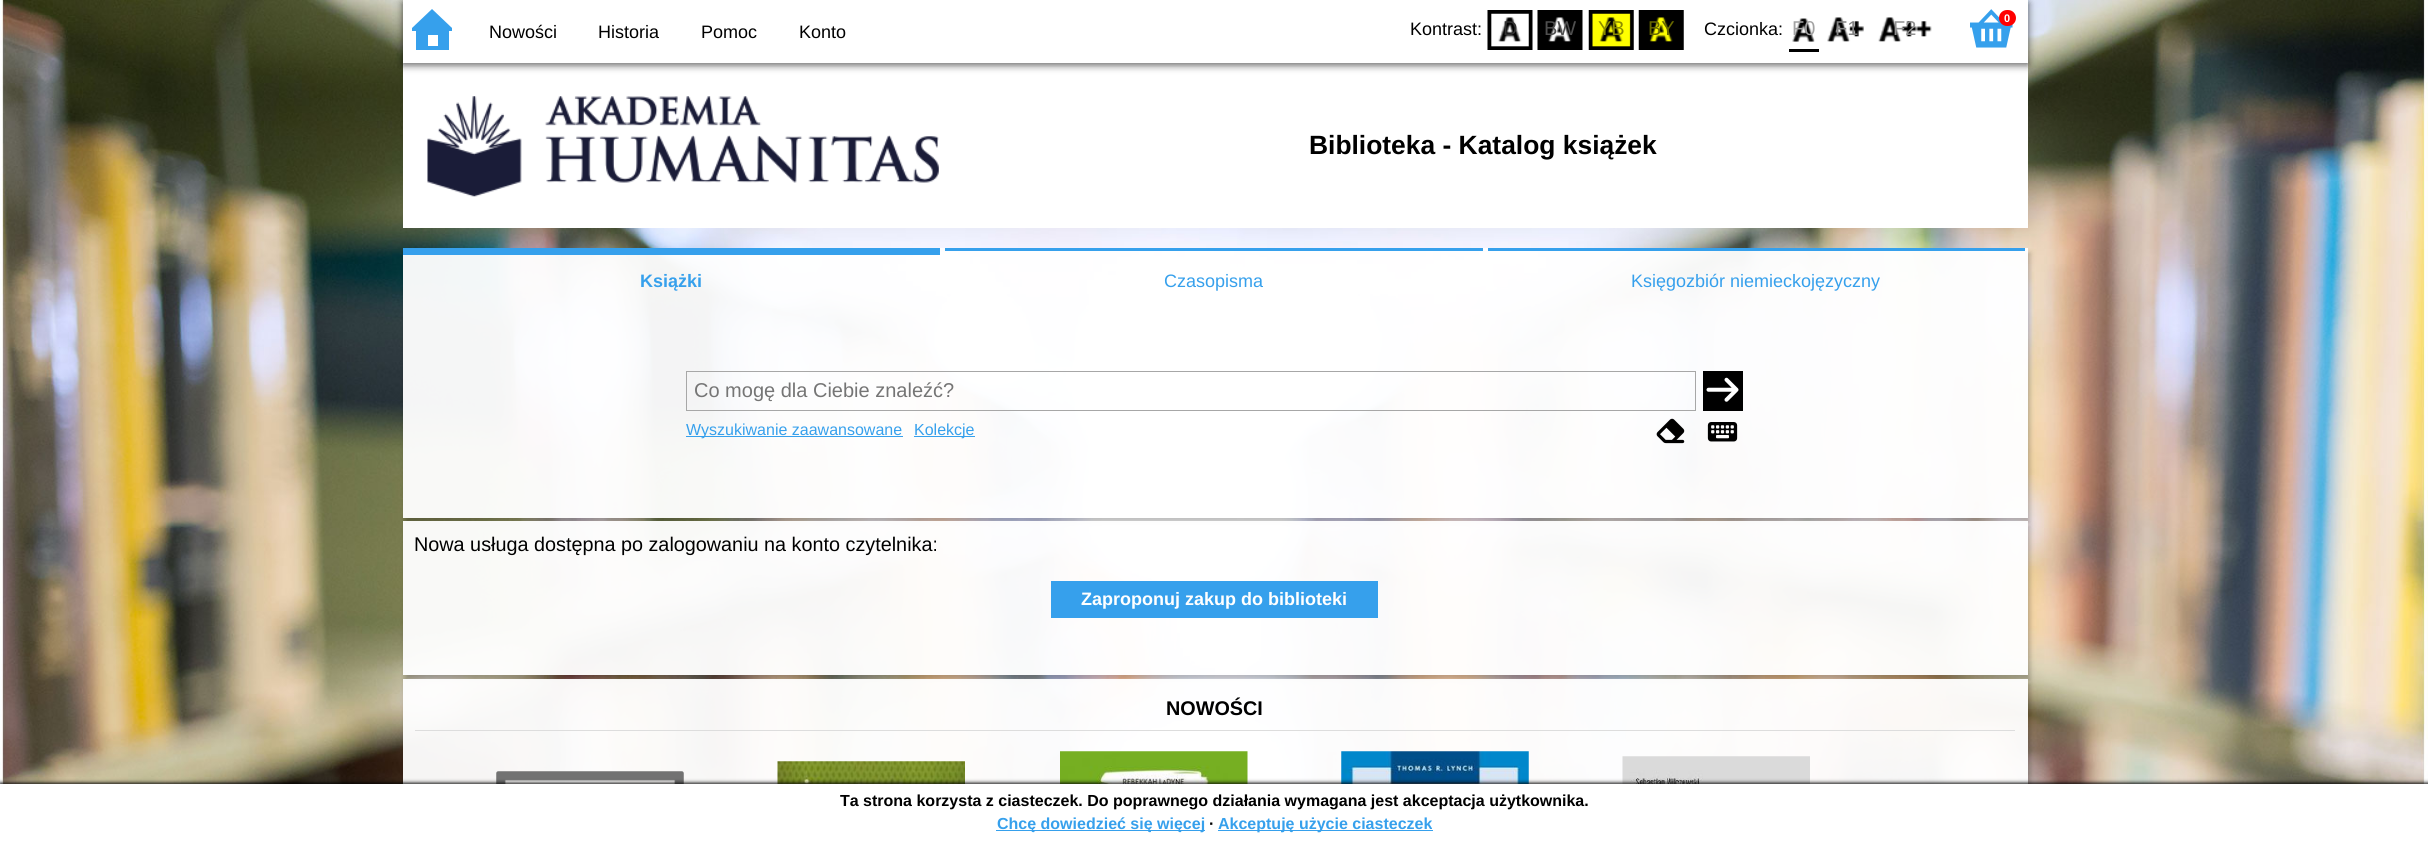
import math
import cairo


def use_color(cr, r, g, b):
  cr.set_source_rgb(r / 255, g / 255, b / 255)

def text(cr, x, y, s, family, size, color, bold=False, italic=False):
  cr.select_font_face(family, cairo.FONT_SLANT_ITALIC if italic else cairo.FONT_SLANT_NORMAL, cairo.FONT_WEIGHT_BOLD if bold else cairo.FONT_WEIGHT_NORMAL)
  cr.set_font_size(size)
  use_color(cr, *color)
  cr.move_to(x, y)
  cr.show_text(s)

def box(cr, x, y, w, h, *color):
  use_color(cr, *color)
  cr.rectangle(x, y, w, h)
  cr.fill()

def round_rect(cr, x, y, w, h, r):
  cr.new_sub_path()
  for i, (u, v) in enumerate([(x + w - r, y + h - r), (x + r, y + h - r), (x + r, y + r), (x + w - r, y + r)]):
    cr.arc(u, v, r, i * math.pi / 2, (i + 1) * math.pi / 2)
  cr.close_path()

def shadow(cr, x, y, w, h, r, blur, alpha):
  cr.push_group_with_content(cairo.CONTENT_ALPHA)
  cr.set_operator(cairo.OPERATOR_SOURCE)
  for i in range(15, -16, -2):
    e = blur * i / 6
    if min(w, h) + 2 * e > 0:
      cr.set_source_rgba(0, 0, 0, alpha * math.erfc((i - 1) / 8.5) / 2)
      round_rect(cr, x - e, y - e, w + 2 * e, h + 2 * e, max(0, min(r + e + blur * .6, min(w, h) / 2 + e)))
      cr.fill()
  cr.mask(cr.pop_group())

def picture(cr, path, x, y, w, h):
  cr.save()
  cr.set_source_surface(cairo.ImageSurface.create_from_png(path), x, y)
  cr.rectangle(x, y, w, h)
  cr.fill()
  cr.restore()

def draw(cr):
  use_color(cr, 255, 255, 255)
  cr.paint()
  picture(cr, "img_01.png", 0, 0, 2428, 784)
  box(cr, 403, 63, 1625, 165, 255, 255, 255)
  use_color(cr, 0, 0, 0)
  shadow(cr, 403, 3, 1625, 62, 0, 4, 0.65)
  box(cr, 403, 0, 1625, 63, 255, 255, 255)
  use_color(cr, 54, 160, 236)
  cr.new_path()
  cr.move_to(452, 31)
  cr.line_to(449, 31)
  cr.line_to(449, 50)
  cr.line_to(416, 50)
  cr.line_to(416, 31)
  cr.line_to(412, 31)
  cr.line_to(412, 28)
  cr.line_to(432, 9)
  cr.line_to(452, 28)
  cr.close_path()
  cr.move_to(438, 46)
  cr.line_to(438, 35)
  cr.line_to(428, 35)
  cr.line_to(428, 46)
  cr.close_path()
  cr.fill()
  picture(cr, "img_02.png", 1970, 9, 43, 39)
  use_color(cr, 255, 0, 0)
  round_rect(cr, 1999, 10, 17, 16, 8)
  cr.fill()
  picture(cr, "img_03.png", 1487, 10, 46, 40)
  picture(cr, "img_04.png", 1537, 10, 46, 40)
  picture(cr, "img_05.png", 1588, 10, 46, 40)
  picture(cr, "img_06.png", 1638, 10, 46, 40)
  picture(cr, "img_07.png", 1792, 18, 23, 24)
  box(cr, 1789, 49, 30, 3, 0, 0, 0)
  picture(cr, "img_08.png", 1827, 17, 37, 25)
  picture(cr, "img_09.png", 1878, 17, 54, 25)
  picture(cr, "img_10.png", 427, 96, 512, 101)
  cr.save()
  cr.set_fill_rule(cairo.FILL_RULE_EVEN_ODD)
  cr.new_path()
  cr.move_to(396, 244)
  cr.line_to(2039, 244)
  cr.line_to(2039, 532)
  cr.line_to(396, 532)
  cr.close_path()
  cr.move_to(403, 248)
  cr.line_to(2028, 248)
  cr.line_to(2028, 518)
  cr.line_to(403, 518)
  cr.close_path()
  cr.clip()
  use_color(cr, 0, 0, 0)
  shadow(cr, 405, 253, 1625, 270, 0, 2.5, 0.25)
  cr.restore()
  cr.set_source_rgba(1, 1, 1, 0.95)
  cr.rectangle(403, 248, 1625, 270)
  cr.fill()
  box(cr, 403, 248, 537, 7, 54, 160, 236)
  box(cr, 945, 248, 538, 3, 54, 160, 236)
  box(cr, 1488, 248, 537, 3, 54, 160, 236)
  cr.rectangle(686.5, 371.5, 1009, 39)
  use_color(cr, 167, 167, 167)
  cr.set_line_width(1)
  cr.stroke()
  box(cr, 1703, 371, 40, 40, 0, 0, 0)
  picture(cr, "img_11.png", 1706, 377, 33, 25)
  box(cr, 686, 436, 217, 1, 54, 160, 236)
  box(cr, 914, 436, 61, 1, 54, 160, 236)
  picture(cr, "img_12.png", 1656, 418, 29, 26)
  picture(cr, "img_13.png", 1707, 422, 31, 20)
  cr.save()
  cr.set_fill_rule(cairo.FILL_RULE_EVEN_ODD)
  cr.new_path()
  cr.move_to(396, 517)
  cr.line_to(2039, 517)
  cr.line_to(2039, 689)
  cr.line_to(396, 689)
  cr.close_path()
  cr.move_to(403, 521)
  cr.line_to(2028, 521)
  cr.line_to(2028, 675)
  cr.line_to(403, 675)
  cr.close_path()
  cr.clip()
  use_color(cr, 0, 0, 0)
  shadow(cr, 405, 526, 1625, 154, 0, 2.5, 0.25)
  cr.restore()
  cr.set_source_rgba(1, 1, 1, 0.95)
  cr.rectangle(403, 521, 1625, 154)
  cr.fill()
  box(cr, 1051, 581, 327, 37, 54, 160, 236)
  cr.save()
  cr.set_fill_rule(cairo.FILL_RULE_EVEN_ODD)
  cr.new_path()
  cr.move_to(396, 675)
  cr.line_to(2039, 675)
  cr.line_to(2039, 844)
  cr.line_to(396, 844)
  cr.close_path()
  cr.move_to(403, 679)
  cr.line_to(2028, 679)
  cr.line_to(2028, 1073)
  cr.line_to(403, 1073)
  cr.close_path()
  cr.clip()
  use_color(cr, 0, 0, 0)
  shadow(cr, 405, 684, 1625, 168, 0, 2.5, 0.25)
  cr.restore()
  cr.set_source_rgba(1, 1, 1, 0.95)
  cr.rectangle(403, 679, 1625, 105)
  cr.fill()
  box(cr, 415, 730, 1600, 1, 221, 221, 221)
  picture(cr, "img_14.png", 496, 771, 188, 13)
  picture(cr, "img_15.png", 777, 761, 188, 23)
  picture(cr, "img_16.png", 1060, 751, 188, 33)
  picture(cr, "img_17.png", 1341, 751, 188, 33)
  picture(cr, "img_18.png", 1622, 756, 188, 28)
  use_color(cr, 0, 0, 0)
  shadow(cr, 0, 783, 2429, 61, 0, 2, 1)
  box(cr, 0, 784, 2428, 60, 255, 255, 255)
  box(cr, 996, 830, 209, 1, 54, 160, 236)
  box(cr, 1218, 830, 215, 1, 54, 160, 236)
  text(cr, 489, 38, "Nowości", "Liberation Sans", 18, (0, 0, 0))
  text(cr, 598, 38, "Historia", "Liberation Sans", 18, (0, 0, 0))
  text(cr, 701, 38, "Pomoc", "Liberation Sans", 18, (0, 0, 0))
  text(cr, 799, 38, "Konto", "Liberation Sans", 18, (0, 0, 0))
  text(cr, 2004, 22, "0", "Liberation Sans", 11, (255, 255, 255), bold=True)
  text(cr, 1410, 35, "Kontrast:", "Liberation Sans", 18, (0, 0, 0))
  text(cr, 1503, 35, "D", "Liberation Sans", 20, (49, 49, 49))
  text(cr, 1544, 35, "BW", "Liberation Sans", 20, (79, 79, 79))
  text(cr, 1598, 35, "YB", "Liberation Sans", 20, (140, 140, 0))
  text(cr, 1648, 35, "BY", "Liberation Sans", 20, (104, 104, 0))
  text(cr, 1704, 35, "Czcionka:", "Liberation Sans", 18, (0, 0, 0))
  text(cr, 1792, 35, "F0", "Liberation Sans", 20, (163, 163, 163))
  text(cr, 1835, 35, "F1", "Liberation Sans", 20, (132, 132, 132))
  text(cr, 1893, 35, "F2", "Liberation Sans", 20, (145, 145, 145))
  text(cr, 1309, 154, "Biblioteka - Katalog książek", "Liberation Sans", 26.4, (0, 0, 0), bold=True)
  text(cr, 640, 287, "Książki", "Liberation Sans", 18, (54, 160, 236), bold=True)
  text(cr, 1164, 287, "Czasopisma", "Liberation Sans", 18, (54, 160, 236))
  text(cr, 1631, 287, "Księgozbiór niemieckojęzyczny", "Liberation Sans", 18, (54, 160, 236))
  text(cr, 694, 397, "Co mogę dla Ciebie znaleźć?", "Liberation Sans", 20, (117, 117, 117))
  text(cr, 686, 435, "Wyszukiwanie zaawansowane", "Liberation Sans", 16, (54, 160, 236))
  text(cr, 914, 435, "Kolekcje", "Liberation Sans", 16, (54, 160, 236))
  text(cr, 414, 551, "Nowa usługa dostępna po zalogowaniu na konto czytelnika:", "Liberation Sans", 19.8, (0, 0, 0))
  text(cr, 1081, 605, "Zaproponuj zakup do biblioteki", "Liberation Sans", 18, (255, 255, 255), bold=True)
  text(cr, 1166, 715, "NOWOŚCI", "Liberation Sans", 19.8, (0, 0, 0), bold=True)
  text(cr, 840, 806, "Ta strona korzysta z ciasteczek. Do poprawnego działania wymagana jest akceptacja użytkownika.", "Liberation Sans", 16, (0, 0, 0), bold=True)
  text(cr, 997, 829, "Chcę dowiedzieć się więcej", "Liberation Sans", 16, (54, 160, 236), bold=True)
  text(cr, 1209, 829, "∙", "Liberation Sans", 16, (0, 0, 0), bold=True)
  text(cr, 1218, 829, "Akceptuję użycie ciasteczek", "Liberation Sans", 16, (54, 160, 236), bold=True)


surface = cairo.ImageSurface(cairo.FORMAT_RGB24, 2428, 844)
cr = cairo.Context(surface)
options = cairo.FontOptions()
options.set_hint_metrics(cairo.HINT_METRICS_OFF)
options.set_hint_style(cairo.HINT_STYLE_NONE)
cr.set_font_options(options)
cr.set_miter_limit(4)
draw(cr)
surface.write_to_png("out.png")
